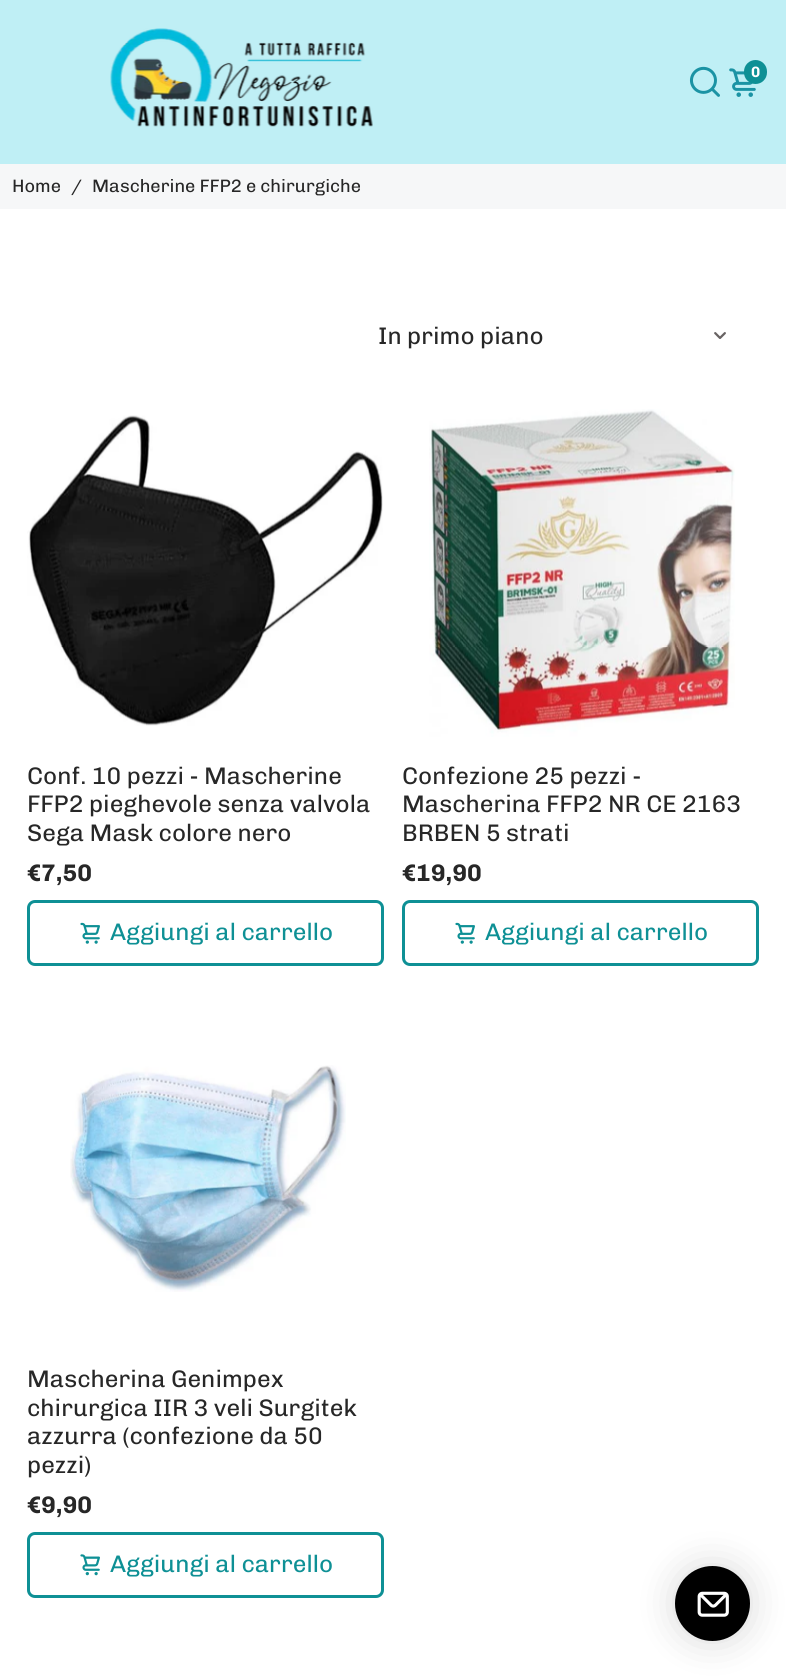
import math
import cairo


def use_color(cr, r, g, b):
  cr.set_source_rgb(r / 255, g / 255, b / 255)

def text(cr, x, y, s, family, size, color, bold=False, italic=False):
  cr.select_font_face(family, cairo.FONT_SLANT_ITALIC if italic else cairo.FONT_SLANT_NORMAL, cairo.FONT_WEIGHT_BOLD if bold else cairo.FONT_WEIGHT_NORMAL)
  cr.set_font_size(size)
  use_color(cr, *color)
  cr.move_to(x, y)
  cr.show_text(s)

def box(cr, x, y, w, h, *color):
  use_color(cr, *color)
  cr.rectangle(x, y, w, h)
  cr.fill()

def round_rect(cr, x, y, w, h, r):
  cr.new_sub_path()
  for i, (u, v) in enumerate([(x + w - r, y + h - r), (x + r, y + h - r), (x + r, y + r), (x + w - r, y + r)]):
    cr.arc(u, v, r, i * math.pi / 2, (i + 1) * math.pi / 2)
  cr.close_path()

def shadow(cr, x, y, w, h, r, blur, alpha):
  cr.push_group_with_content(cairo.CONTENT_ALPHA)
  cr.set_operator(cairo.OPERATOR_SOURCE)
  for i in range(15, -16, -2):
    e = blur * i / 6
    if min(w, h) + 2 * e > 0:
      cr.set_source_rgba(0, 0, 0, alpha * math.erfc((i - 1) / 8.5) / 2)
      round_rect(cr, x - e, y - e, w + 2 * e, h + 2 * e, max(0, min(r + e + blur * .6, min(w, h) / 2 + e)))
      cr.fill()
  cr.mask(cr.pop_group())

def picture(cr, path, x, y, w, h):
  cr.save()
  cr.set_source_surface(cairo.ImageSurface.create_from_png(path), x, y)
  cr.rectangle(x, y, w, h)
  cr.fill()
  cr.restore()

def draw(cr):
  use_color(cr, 255, 255, 255)
  cr.paint()
  box(cr, 0, 0, 786, 164, 191, 239, 245)
  picture(cr, "img_01.png", 110, 28, 263, 99)
  picture(cr, "img_02.png", 689, 66, 31, 31)
  picture(cr, "img_03.png", 729, 68, 27, 29)
  use_color(cr, 14, 144, 149)
  round_rect(cr, 744, 60, 23, 24, 11.5)
  cr.fill()
  box(cr, 0, 164, 786, 45, 246, 247, 248)
  picture(cr, "img_04.png", 714, 332, 12, 7)
  picture(cr, "img_05.png", 27, 415, 356, 311)
  round_rect(cr, 28.5, 901.5, 354, 63, 6.5)
  use_color(cr, 14, 144, 149)
  cr.set_line_width(3)
  cr.stroke()
  picture(cr, "img_06.png", 80, 922, 20, 22)
  picture(cr, "img_07.png", 429, 409, 306, 328)
  round_rect(cr, 403.5, 901.5, 354, 63, 6.5)
  cr.stroke()
  picture(cr, "img_06.png", 455, 922, 20, 22)
  picture(cr, "img_08.png", 70, 1065, 276, 227)
  round_rect(cr, 28.5, 1533.5, 354, 63, 6.5)
  cr.stroke()
  picture(cr, "img_09.png", 80, 1554, 20, 22)
  use_color(cr, 0, 0, 0)
  shadow(cr, 675, 1566, 75, 75, 37.5, 19, 0.15)
  use_color(cr, 0, 0, 0)
  cr.arc(712.5, 1603.5, 37.5, 0, 2 * math.pi)
  cr.fill()
  picture(cr, "img_10.png", 697, 1591, 32, 26)
  text(cr, 751, 77, "0", "Chivo", 15, (255, 255, 255), bold=True)
  text(cr, 12, 192, "Home", "Chivo", 18, (39, 39, 39))
  text(cr, 71, 192, "/", "Chivo", 18, (39, 39, 39))
  text(cr, 92, 192, "Mascherine FFP2 e chirurgiche", "Chivo", 18, (39, 39, 39))
  text(cr, 378, 344, "In primo piano", "Chivo", 24, (39, 39, 39))
  text(cr, 27, 784, "Conf. 10 pezzi - Mascherine", "Chivo", 24, (39, 39, 39))
  text(cr, 27, 812, "FFP2 pieghevole senza valvola", "Chivo", 24, (39, 39, 39))
  text(cr, 27, 841, "Sega Mask colore nero", "Chivo", 24, (39, 39, 39))
  text(cr, 27, 881, "€7,50", "Chivo", 24, (39, 39, 39), bold=True)
  text(cr, 110, 940, "Aggiungi al carrello", "Chivo", 24, (14, 144, 149))
  text(cr, 402, 784, "Confezione 25 pezzi -", "Chivo", 24, (39, 39, 39))
  text(cr, 402, 812, "Mascherina FFP2 NR CE 2163", "Chivo", 24, (39, 39, 39))
  text(cr, 402, 841, "BRBEN 5 strati", "Chivo", 24, (39, 39, 39))
  text(cr, 402, 881, "€19,90", "Chivo", 24, (39, 39, 39), bold=True)
  text(cr, 485, 940, "Aggiungi al carrello", "Chivo", 24, (14, 144, 149))
  text(cr, 27, 1387, "Mascherina Genimpex", "Chivo", 24, (39, 39, 39))
  text(cr, 27, 1416, "chirurgica IIR 3 veli Surgitek", "Chivo", 24, (39, 39, 39))
  text(cr, 27, 1444, "azzurra (confezione da 50", "Chivo", 24, (39, 39, 39))
  text(cr, 27, 1473, "pezzi)", "Chivo", 24, (39, 39, 39))
  text(cr, 27, 1513, "€9,90", "Chivo", 24, (39, 39, 39), bold=True)
  text(cr, 110, 1572, "Aggiungi al carrello", "Chivo", 24, (14, 144, 149))


surface = cairo.ImageSurface(cairo.FORMAT_RGB24, 786, 1676)
cr = cairo.Context(surface)
options = cairo.FontOptions()
options.set_hint_metrics(cairo.HINT_METRICS_OFF)
options.set_hint_style(cairo.HINT_STYLE_NONE)
cr.set_font_options(options)
cr.set_miter_limit(4)
draw(cr)
surface.write_to_png("out.png")
